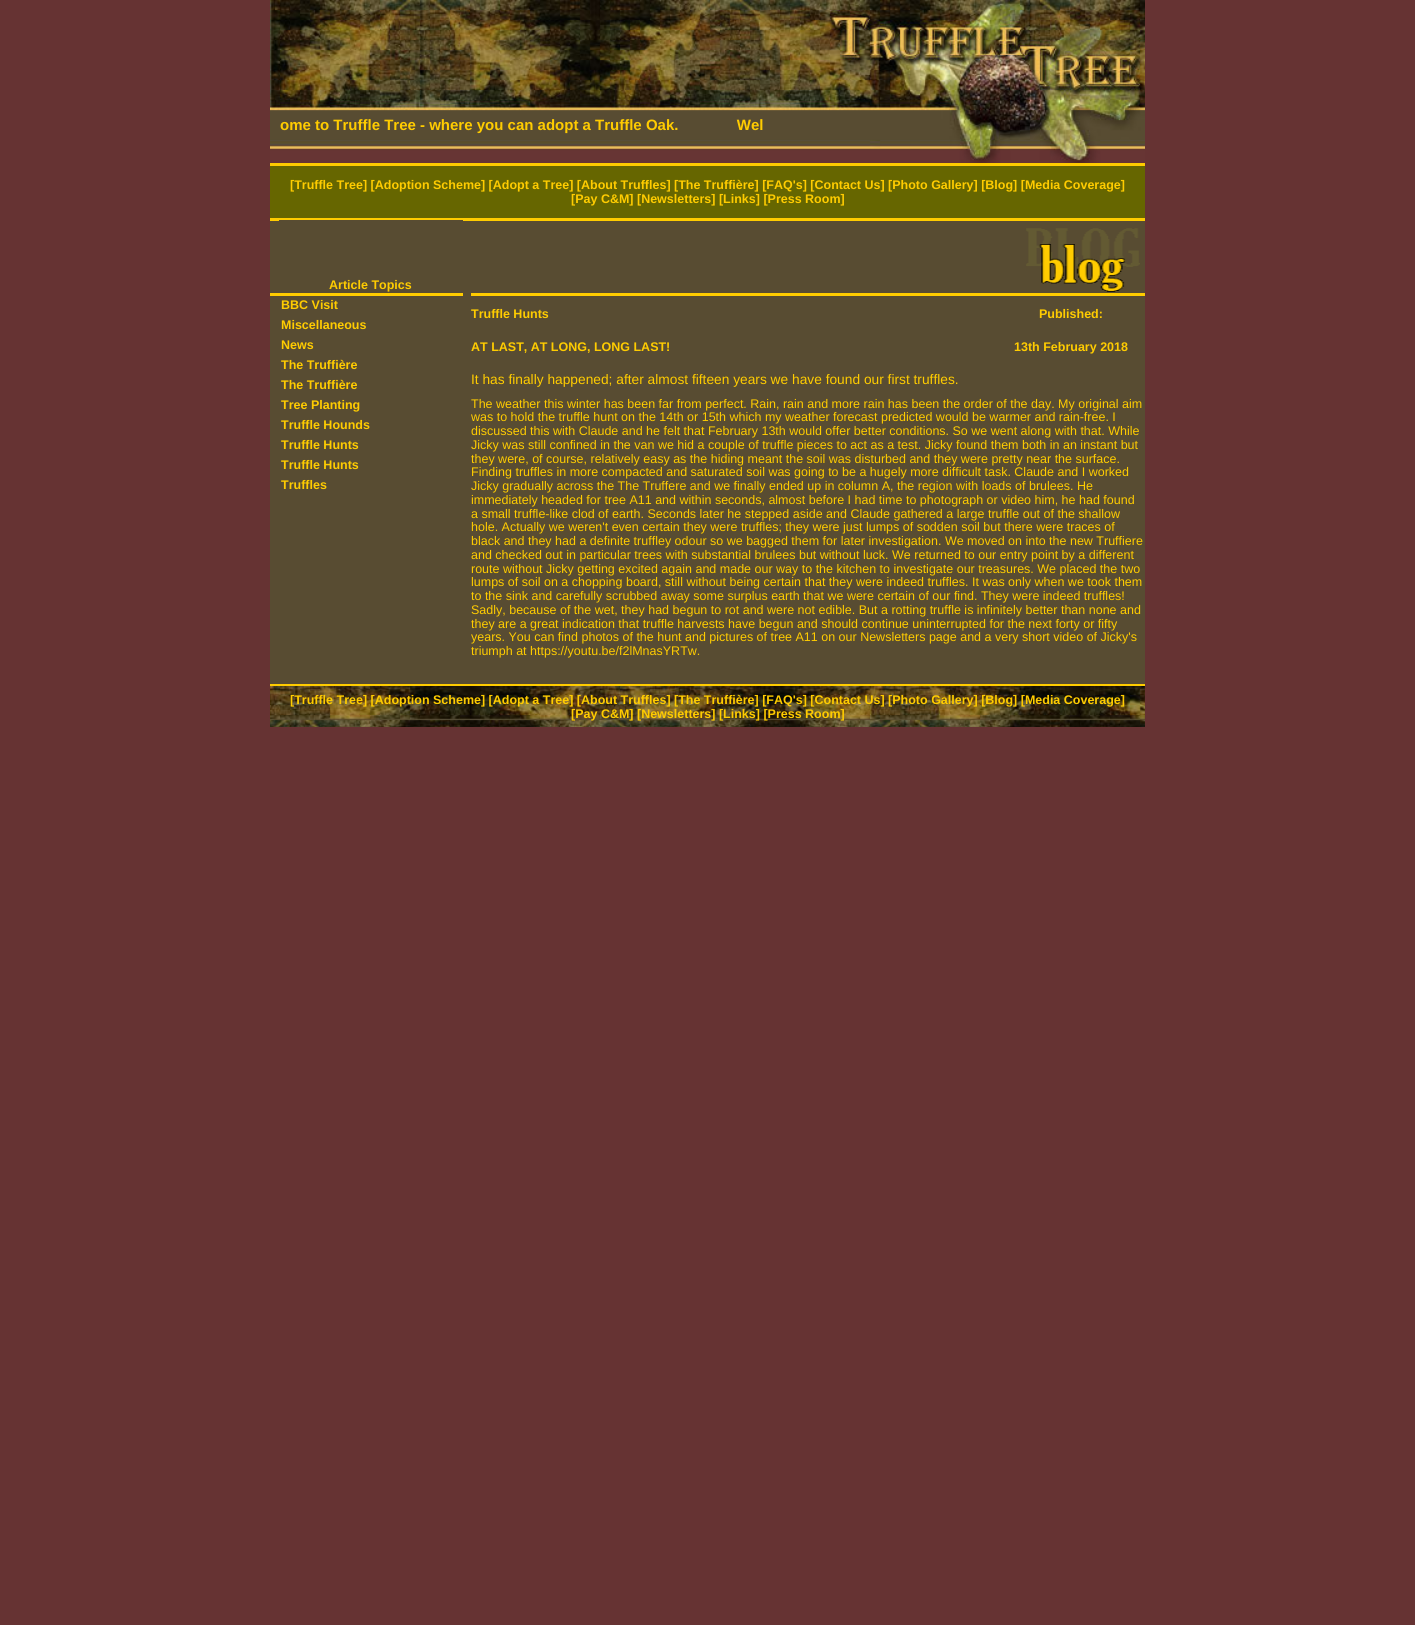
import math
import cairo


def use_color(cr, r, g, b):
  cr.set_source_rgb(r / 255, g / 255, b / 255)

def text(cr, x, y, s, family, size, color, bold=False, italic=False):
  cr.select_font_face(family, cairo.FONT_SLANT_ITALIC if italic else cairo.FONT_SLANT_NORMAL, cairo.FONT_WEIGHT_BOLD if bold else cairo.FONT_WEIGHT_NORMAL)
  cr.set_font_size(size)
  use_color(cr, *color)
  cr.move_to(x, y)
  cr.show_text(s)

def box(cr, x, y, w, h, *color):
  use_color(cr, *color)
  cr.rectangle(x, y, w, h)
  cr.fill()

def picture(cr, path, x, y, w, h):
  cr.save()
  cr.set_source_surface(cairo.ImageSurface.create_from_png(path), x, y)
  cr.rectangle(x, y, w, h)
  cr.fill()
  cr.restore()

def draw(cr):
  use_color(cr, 102, 51, 51)
  cr.paint()
  picture(cr, "img_01.png", 270, 0, 875, 163)
  box(cr, 270, 166, 875, 52, 102, 102, 0)
  box(cr, 270, 163, 875, 3, 255, 204, 0)
  box(cr, 270, 221, 875, 463, 88, 76, 50)
  box(cr, 270, 218, 875, 3, 255, 204, 0)
  box(cr, 270, 684, 875, 2, 255, 204, 0)
  box(cr, 279, 220, 184, 1, 88, 76, 50)
  box(cr, 471, 293, 674, 3, 255, 204, 0)
  picture(cr, "img_02.png", 1026, 228, 114, 64)
  box(cr, 270, 293, 193, 3, 255, 204, 0)
  picture(cr, "img_03.png", 270, 686, 875, 41)
  text(cr, 280, 130, "ome to Truffle Tree - where you can adopt a Truffle Oak.              Wel", "Liberation Sans", 15, (255, 204, 0), bold=True)
  text(cr, 290, 189, "[Truffle Tree] [Adoption Scheme] [Adopt a Tree] [About Truffles] [The Truffière] [FAQ's] [Contact Us] [Photo Gallery] [Blog] [Media Coverage]", "Liberation Sans", 12.5, (255, 204, 0), bold=True)
  text(cr, 571, 203, "[Pay C&M] [Newsletters] [Links] [Press Room]", "Liberation Sans", 12.5, (255, 204, 0), bold=True)
  text(cr, 329, 289, "Article Topics", "Liberation Sans", 12.5, (255, 204, 0), bold=True)
  text(cr, 281, 309, "BBC Visit", "Liberation Sans", 12.5, (255, 204, 0), bold=True)
  text(cr, 281, 329, "Miscellaneous", "Liberation Sans", 12.5, (255, 204, 0), bold=True)
  text(cr, 281, 349, "News", "Liberation Sans", 12.5, (255, 204, 0), bold=True)
  text(cr, 281, 369, "The Truffière", "Liberation Sans", 12.5, (255, 204, 0), bold=True)
  text(cr, 281, 389, "The Truffière", "Liberation Sans", 12.5, (255, 204, 0), bold=True)
  text(cr, 281, 409, "Tree Planting", "Liberation Sans", 12.5, (255, 204, 0), bold=True)
  text(cr, 281, 429, "Truffle Hounds", "Liberation Sans", 12.5, (255, 204, 0), bold=True)
  text(cr, 281, 449, "Truffle Hunts", "Liberation Sans", 12.5, (255, 204, 0), bold=True)
  text(cr, 281, 469, "Truffle Hunts", "Liberation Sans", 12.5, (255, 204, 0), bold=True)
  text(cr, 281, 489, "Truffles", "Liberation Sans", 12.5, (255, 204, 0), bold=True)
  text(cr, 471, 318, "Truffle Hunts", "Liberation Sans", 12.5, (255, 204, 0), bold=True)
  text(cr, 1039, 318, "Published:", "Liberation Sans", 12.5, (255, 204, 0), bold=True)
  text(cr, 471, 351, "AT LAST, AT LONG, LONG LAST!", "Liberation Sans", 12.5, (255, 204, 0), bold=True)
  text(cr, 1014, 351, "13th February 2018", "Liberation Sans", 12.5, (255, 204, 0), bold=True)
  text(cr, 471, 384, "It has finally happened; after almost fifteen years we have found our first truffles.", "Liberation Sans", 13.75, (255, 204, 0))
  text(cr, 471, 408, "The weather this winter has been far from perfect. Rain, rain and more rain has been the order of the day. My original aim", "Liberation Sans", 12.5, (255, 204, 0))
  text(cr, 471, 421, "was to hold the truffle hunt on the 14th or 15th which my weather forecast predicted would be warmer and rain-free. I", "Liberation Sans", 12.5, (255, 204, 0))
  text(cr, 471, 435, "discussed this with Claude and he felt that February 13th would offer better conditions. So we went along with that. While", "Liberation Sans", 12.5, (255, 204, 0))
  text(cr, 471, 449, "Jicky was still confined in the van we hid a couple of truffle pieces to act as a test. Jicky found them both in an instant but", "Liberation Sans", 12.5, (255, 204, 0))
  text(cr, 471, 463, "they were, of course, relatively easy as the hiding meant the soil was disturbed and they were pretty near the surface.", "Liberation Sans", 12.5, (255, 204, 0))
  text(cr, 471, 476, "Finding truffles in more compacted and saturated soil was going to be a hugely more difficult task. Claude and I worked", "Liberation Sans", 12.5, (255, 204, 0))
  text(cr, 471, 490, "Jicky gradually across the The Truffere and we finally ended up in column A, the region with loads of brulees. He", "Liberation Sans", 12.5, (255, 204, 0))
  text(cr, 471, 504, "immediately headed for tree A11 and within seconds, almost before I had time to photograph or video him, he had found", "Liberation Sans", 12.5, (255, 204, 0))
  text(cr, 471, 518, "a small truffle-like clod of earth. Seconds later he stepped aside and Claude gathered a large truffle out of the shallow", "Liberation Sans", 12.5, (255, 204, 0))
  text(cr, 471, 531, "hole. Actually we weren't even certain they were truffles; they were just lumps of sodden soil but there were traces of", "Liberation Sans", 12.5, (255, 204, 0))
  text(cr, 471, 545, "black and they had a definite truffley odour so we bagged them for later investigation. We moved on into the new Truffiere", "Liberation Sans", 12.5, (255, 204, 0))
  text(cr, 471, 559, "and checked out in particular trees with substantial brulees but without luck. We returned to our entry point by a different", "Liberation Sans", 12.5, (255, 204, 0))
  text(cr, 471, 573, "route without Jicky getting excited again and made our way to the kitchen to investigate our treasures. We placed the two", "Liberation Sans", 12.5, (255, 204, 0))
  text(cr, 471, 586, "lumps of soil on a chopping board, still without being certain that they were indeed truffles. It was only when we took them", "Liberation Sans", 12.5, (255, 204, 0))
  text(cr, 471, 600, "to the sink and carefully scrubbed away some surplus earth that we were certain of our find. They were indeed truffles!", "Liberation Sans", 12.5, (255, 204, 0))
  text(cr, 471, 614, "Sadly, because of the wet, they had begun to rot and were not edible. But a rotting truffle is infinitely better than none and", "Liberation Sans", 12.5, (255, 204, 0))
  text(cr, 471, 628, "they are a great indication that truffle harvests have begun and should continue uninterrupted for the next forty or fifty", "Liberation Sans", 12.5, (255, 204, 0))
  text(cr, 471, 641, "years. You can find photos of the hunt and pictures of tree A11 on our Newsletters page and a very short video of Jicky's", "Liberation Sans", 12.5, (255, 204, 0))
  text(cr, 471, 655, "triumph at https://youtu.be/f2lMnasYRTw.", "Liberation Sans", 12.5, (255, 204, 0))
  text(cr, 290, 704, "[Truffle Tree] [Adoption Scheme] [Adopt a Tree] [About Truffles] [The Truffière] [FAQ's] [Contact Us] [Photo Gallery] [Blog] [Media Coverage]", "Liberation Sans", 12.5, (255, 204, 0), bold=True)
  text(cr, 571, 718, "[Pay C&M] [Newsletters] [Links] [Press Room]", "Liberation Sans", 12.5, (255, 204, 0), bold=True)


surface = cairo.ImageSurface(cairo.FORMAT_RGB24, 1415, 1625)
cr = cairo.Context(surface)
options = cairo.FontOptions()
options.set_hint_metrics(cairo.HINT_METRICS_OFF)
options.set_hint_style(cairo.HINT_STYLE_NONE)
cr.set_font_options(options)
cr.set_miter_limit(4)
draw(cr)
surface.write_to_png("out.png")
